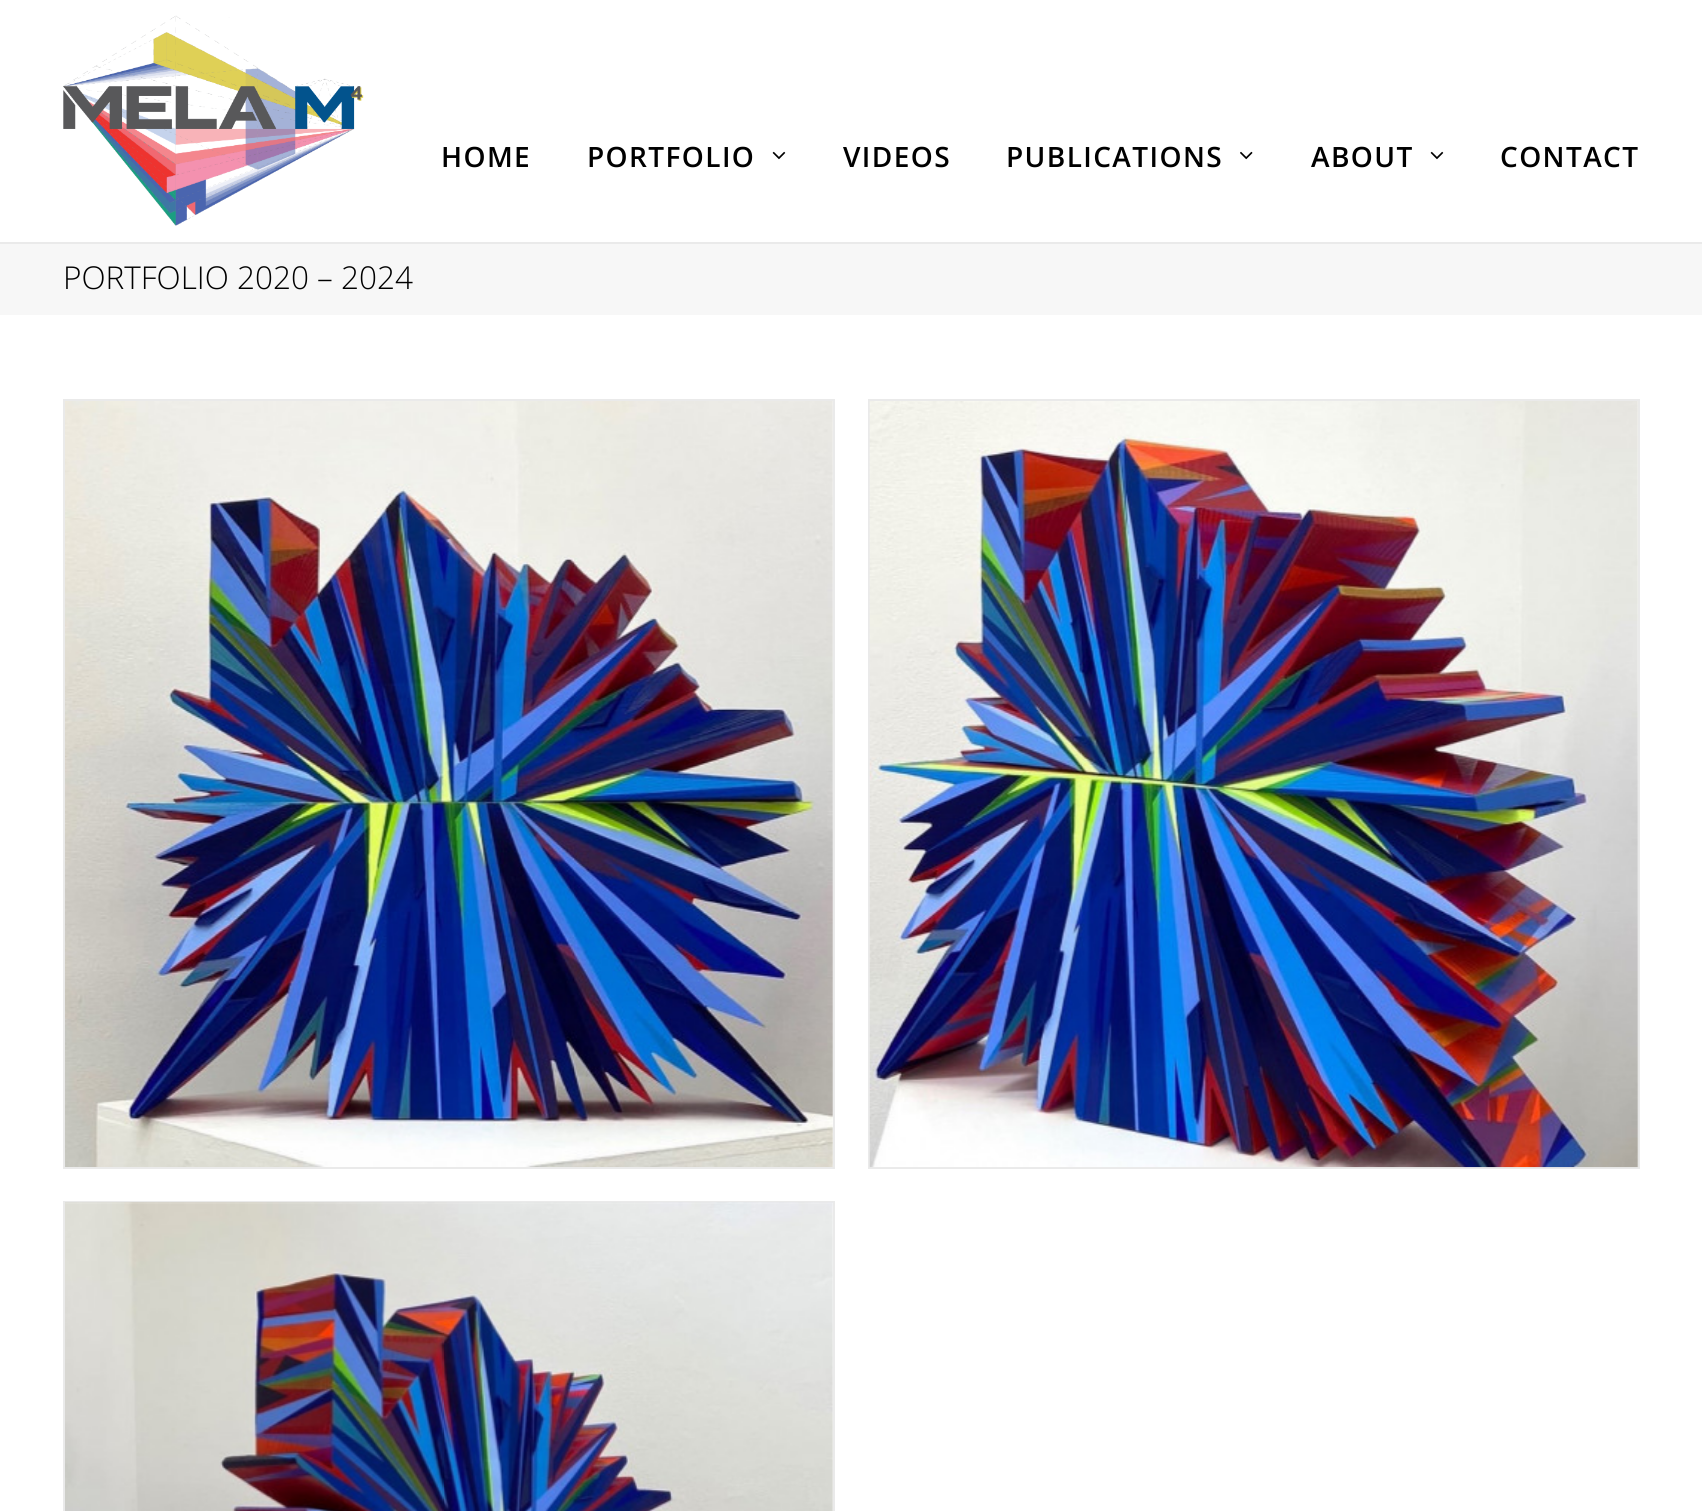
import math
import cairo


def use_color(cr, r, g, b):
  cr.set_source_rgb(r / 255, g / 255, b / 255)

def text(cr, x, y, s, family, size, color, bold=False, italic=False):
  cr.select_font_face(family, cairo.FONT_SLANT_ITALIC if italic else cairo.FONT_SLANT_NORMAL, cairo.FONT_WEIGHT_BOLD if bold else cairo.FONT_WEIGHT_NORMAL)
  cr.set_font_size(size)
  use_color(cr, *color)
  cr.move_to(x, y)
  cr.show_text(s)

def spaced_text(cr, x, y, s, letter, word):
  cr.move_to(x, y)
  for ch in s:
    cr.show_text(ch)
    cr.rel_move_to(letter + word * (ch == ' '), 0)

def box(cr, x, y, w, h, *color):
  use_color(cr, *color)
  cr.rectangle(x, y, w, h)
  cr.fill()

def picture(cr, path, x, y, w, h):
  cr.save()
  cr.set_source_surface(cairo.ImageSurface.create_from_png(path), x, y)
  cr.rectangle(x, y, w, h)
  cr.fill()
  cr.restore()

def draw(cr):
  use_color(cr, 247, 247, 247)
  cr.paint()
  box(cr, 0, 0, 1702, 242, 255, 255, 255)
  box(cr, 0, 242, 1702, 2, 234, 234, 234)
  picture(cr, "img_01.png", 63, 15, 301, 211)
  picture(cr, "img_02.png", 772, 151, 14, 9)
  picture(cr, "img_03.png", 1240, 151, 13, 9)
  picture(cr, "img_02.png", 1430, 151, 14, 9)
  box(cr, 0, 315, 1702, 1196, 255, 255, 255)
  cr.rectangle(64, 400, 770, 768)
  use_color(cr, 234, 234, 234)
  cr.stroke()
  picture(cr, "img_04.png", 65, 401, 768, 766)
  cr.rectangle(869, 400, 770, 768)
  cr.stroke()
  picture(cr, "img_05.png", 869, 401, 770, 767)
  cr.rectangle(64, 1202, 770, 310)
  cr.stroke()
  picture(cr, "img_06.png", 65, 1202, 768, 309)
  cr.select_font_face("Open Sans SemiBold")
  cr.set_font_size(28)
  use_color(cr, 0, 0, 0)
  spaced_text(cr, 441, 167, "HOME", 1.4, 0)
  spaced_text(cr, 587, 167, "PORTFOLIO", 1.4, 0)
  spaced_text(cr, 843, 167, "VIDEOS", 1.4, 0)
  spaced_text(cr, 1006, 167, "PUBLICATIONS", 1.4, 0)
  spaced_text(cr, 1311, 167, "ABOUT", 1.4, 0)
  spaced_text(cr, 1500, 167, "CONTACT", 1.4, 0)
  text(cr, 63, 289, "PORTFOLIO 2020 – 2024", "Open Sans Light", 31.5, (0, 0, 0))


surface = cairo.ImageSurface(cairo.FORMAT_RGB24, 1702, 1511)
cr = cairo.Context(surface)
options = cairo.FontOptions()
options.set_hint_metrics(cairo.HINT_METRICS_OFF)
options.set_hint_style(cairo.HINT_STYLE_NONE)
cr.set_font_options(options)
cr.set_miter_limit(4)
draw(cr)
surface.write_to_png("out.png")
